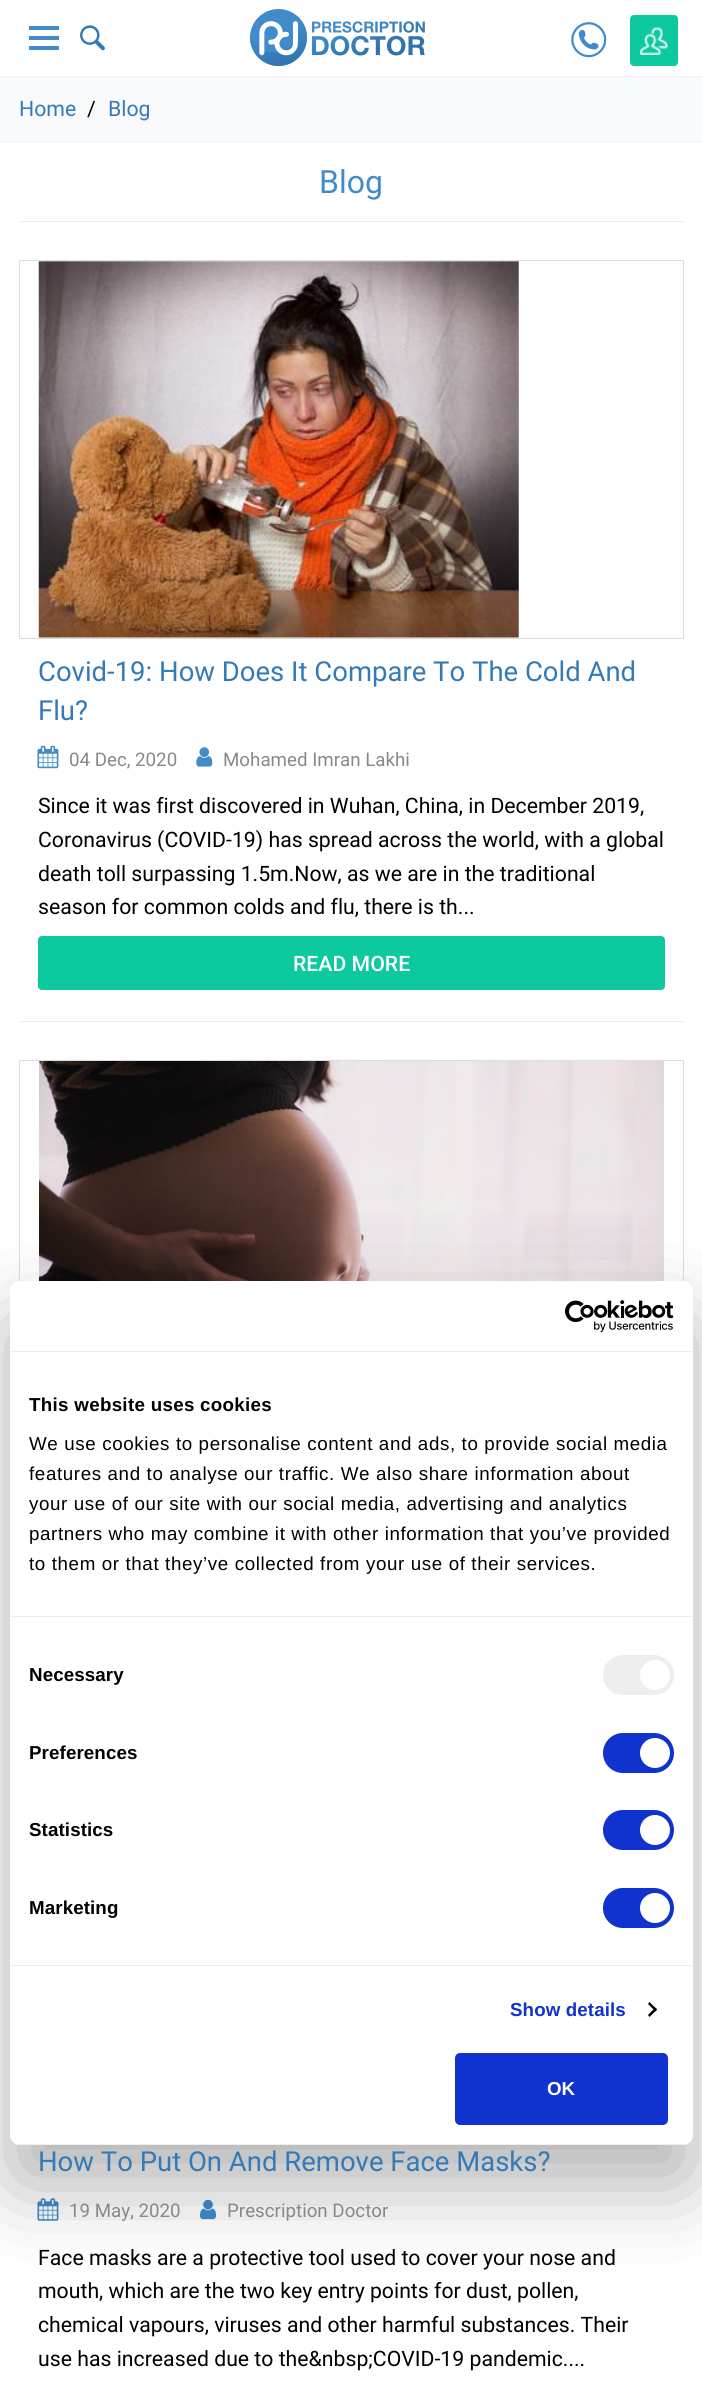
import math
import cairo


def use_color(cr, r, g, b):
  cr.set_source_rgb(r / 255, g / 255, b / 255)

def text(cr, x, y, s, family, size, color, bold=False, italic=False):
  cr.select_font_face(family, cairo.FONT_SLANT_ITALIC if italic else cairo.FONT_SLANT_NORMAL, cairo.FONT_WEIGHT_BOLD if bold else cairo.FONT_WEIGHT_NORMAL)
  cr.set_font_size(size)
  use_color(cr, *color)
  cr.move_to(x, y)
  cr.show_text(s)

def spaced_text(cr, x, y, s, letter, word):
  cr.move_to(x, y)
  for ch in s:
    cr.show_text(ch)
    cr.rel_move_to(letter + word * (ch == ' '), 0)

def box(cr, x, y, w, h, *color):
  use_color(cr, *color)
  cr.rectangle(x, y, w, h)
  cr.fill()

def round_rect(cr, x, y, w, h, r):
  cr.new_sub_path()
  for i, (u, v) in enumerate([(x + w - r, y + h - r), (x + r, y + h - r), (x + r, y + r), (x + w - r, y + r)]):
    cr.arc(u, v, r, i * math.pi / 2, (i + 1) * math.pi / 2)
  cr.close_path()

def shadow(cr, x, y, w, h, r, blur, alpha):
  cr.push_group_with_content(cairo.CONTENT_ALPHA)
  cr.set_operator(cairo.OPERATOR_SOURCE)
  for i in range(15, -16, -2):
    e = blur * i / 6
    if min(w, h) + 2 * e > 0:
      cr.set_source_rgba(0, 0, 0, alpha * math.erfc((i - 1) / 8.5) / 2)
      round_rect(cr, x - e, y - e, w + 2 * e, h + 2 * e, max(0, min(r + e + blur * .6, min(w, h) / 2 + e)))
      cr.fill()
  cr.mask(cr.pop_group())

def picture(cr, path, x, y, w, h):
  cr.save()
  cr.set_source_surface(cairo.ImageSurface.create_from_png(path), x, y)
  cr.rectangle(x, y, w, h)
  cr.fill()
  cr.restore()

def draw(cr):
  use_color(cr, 255, 255, 255)
  cr.paint()
  box(cr, 29, 26, 30, 4, 65, 139, 202)
  box(cr, 29, 36, 30, 4, 65, 139, 202)
  box(cr, 29, 46, 30, 4, 65, 139, 202)
  picture(cr, "img_01.png", 80, 25, 25, 26)
  picture(cr, "img_02.png", 250, 9, 175, 57)
  picture(cr, "img_03.png", 571, 22, 36, 36)
  use_color(cr, 13, 201, 159)
  round_rect(cr, 630, 15, 48, 51, 4)
  cr.fill()
  picture(cr, "img_04.png", 640, 27, 28, 28)
  box(cr, 0, 77, 702, 66, 249, 250, 251)
  box(cr, 0, 76, 702, 1, 242, 244, 247)
  box(cr, 0, 141, 702, 1, 242, 244, 247)
  box(cr, 19, 221, 665, 1, 238, 238, 238)
  box(cr, 19, 1021, 665, 1, 238, 238, 238)
  cr.rectangle(19.5, 260.5, 664, 378)
  use_color(cr, 221, 221, 221)
  cr.set_line_width(1)
  cr.stroke()
  picture(cr, "img_05.png", 38, 261, 481, 377)
  picture(cr, "img_06.png", 37, 745, 22, 24)
  picture(cr, "img_07.png", 196, 747, 17, 20)
  use_color(cr, 13, 201, 159)
  round_rect(cr, 38, 936, 627, 54, 4)
  cr.fill()
  cr.rectangle(19.5, 1060.5, 664, 418)
  use_color(cr, 221, 221, 221)
  cr.stroke()
  picture(cr, "img_08.png", 39, 1061, 625, 220)
  picture(cr, "img_09.png", 37, 2198, 22, 23)
  picture(cr, "img_10.png", 200, 2199, 17, 21)
  use_color(cr, 0, 0, 0)
  shadow(cr, 10, 1321, 683, 864, 10, 42.5, 0.3)
  use_color(cr, 255, 255, 255)
  round_rect(cr, 10, 1281, 683, 864, 10)
  cr.fill()
  box(cr, 10, 1351, 683, 1, 238, 238, 238)
  picture(cr, "img_11.png", 565, 1300, 109, 32)
  box(cr, 10, 1616, 683, 1, 238, 238, 238)
  box(cr, 10, 1965, 683, 1, 238, 238, 238)
  round_rect(cr, 603, 1655, 71, 40, 20)
  cr.fill()
  use_color(cr, 255, 255, 255)
  cr.arc(655, 1675, 15, 0, 2 * math.pi)
  cr.fill()
  use_color(cr, 16, 50, 207)
  round_rect(cr, 603, 1733, 71, 40, 20)
  cr.fill()
  use_color(cr, 255, 255, 255)
  cr.arc(655, 1753, 15, 0, 2 * math.pi)
  cr.fill()
  use_color(cr, 16, 50, 207)
  round_rect(cr, 603, 1810, 71, 40, 20)
  cr.fill()
  use_color(cr, 255, 255, 255)
  cr.arc(655, 1830, 15, 0, 2 * math.pi)
  cr.fill()
  use_color(cr, 16, 50, 207)
  round_rect(cr, 603, 1888, 71, 40, 20)
  cr.fill()
  use_color(cr, 255, 255, 255)
  cr.arc(655, 1908, 15, 0, 2 * math.pi)
  cr.fill()
  use_color(cr, 0, 0, 0)
  cr.new_path()
  cr.move_to(649.5, 2002)
  cr.line_to(657, 2009.5)
  cr.line_to(655.5, 2011.5)
  cr.line_to(648, 2004)
  cr.close_path()
  cr.fill()
  cr.new_path()
  cr.move_to(655.5, 2007.5)
  cr.line_to(657, 2009.5)
  cr.line_to(649.5, 2017)
  cr.line_to(648, 2015)
  cr.close_path()
  cr.fill()
  cr.save()
  round_rect(cr, 10, 1281, 683, 864, 10)
  cr.clip()
  box(cr, 10, 2144, 683, 1, 238, 238, 238)
  cr.restore()
  use_color(cr, 16, 50, 207)
  round_rect(cr, 456.5, 2054.5, 210, 69, 3.5)
  cr.fill_preserve()
  cr.set_line_width(3)
  cr.stroke()
  text(cr, 19, 116, "Home", "Roboto", 21.25, (51, 122, 183))
  text(cr, 87, 116, "/", "Roboto", 21.25, (0, 0, 0))
  text(cr, 108, 116, "Blog", "Roboto", 21.25, (51, 122, 183))
  text(cr, 319, 193, "Blog", "Roboto", 32, (65, 139, 202))
  text(cr, 38, 681, "Covid-19: How Does It Compare To The Cold And", "Roboto", 27.5, (51, 122, 183))
  text(cr, 38, 720, "Flu?", "Roboto", 27.5, (51, 122, 183))
  text(cr, 69, 766, "04 Dec, 2020", "Roboto", 18.75, (136, 136, 136))
  text(cr, 223, 766, "Mohamed Imran Lakhi", "Roboto", 18.75, (136, 136, 136))
  text(cr, 38, 813, "Since it was first discovered in Wuhan, China, in December 2019,", "Roboto", 21.25, (0, 0, 0))
  text(cr, 38, 847, "Coronavirus (COVID-19) has spread across the world, with a global", "Roboto", 21.25, (0, 0, 0))
  text(cr, 38, 881, "death toll surpassing 1.5m.Now, as we are in the traditional", "Roboto", 21.25, (0, 0, 0))
  text(cr, 38, 914, "season for common colds and flu, there is th...", "Roboto", 21.25, (0, 0, 0))
  text(cr, 293, 971, "READ MORE", "Roboto Medium", 21.25, (255, 255, 255))
  text(cr, 38, 2171, "How To Put On And Remove Face Masks?", "Roboto", 27.5, (51, 122, 183))
  text(cr, 69, 2217, "19 May, 2020", "Roboto", 18.75, (136, 136, 136))
  text(cr, 227, 2217, "Prescription Doctor", "Roboto", 18.75, (136, 136, 136))
  text(cr, 38, 2265, "Face masks are a protective tool used to cover your nose and", "Roboto", 21.25, (0, 0, 0))
  text(cr, 38, 2298, "mouth, which are the two key entry points for dust, pollen,", "Roboto", 21.25, (0, 0, 0))
  text(cr, 38, 2332, "chemical vapours, viruses and other harmful substances. Their", "Roboto", 21.25, (0, 0, 0))
  text(cr, 38, 2366, "use has increased due to the&nbsp;COVID-19 pandemic....", "Roboto", 21.25, (0, 0, 0))
  cr.select_font_face("Liberation Sans", cairo.FONT_SLANT_NORMAL, cairo.FONT_WEIGHT_BOLD)
  cr.set_font_size(18.75)
  spaced_text(cr, 29, 1411, "This website uses cookies", 0.3, 0)
  cr.select_font_face("Liberation Sans")
  spaced_text(cr, 29, 1450, "We use cookies to personalise content and ads, to provide social media", 0.62, 0)
  spaced_text(cr, 29, 1480, "features and to analyse our traffic. We also share information about", 0.62, 0)
  spaced_text(cr, 29, 1510, "your use of our site with our social media, advertising and analytics", 0.62, 0)
  spaced_text(cr, 29, 1540, "partners who may combine it with other information that you’ve provided", 0.62, 0)
  spaced_text(cr, 29, 1570, "to them or that they’ve collected from your use of their services.", 0.62, 0)
  cr.select_font_face("Liberation Sans", cairo.FONT_SLANT_NORMAL, cairo.FONT_WEIGHT_BOLD)
  spaced_text(cr, 29, 1681, "Necessary", 0.1, 0)
  spaced_text(cr, 29, 1759, "Preferences", 0.1, 0)
  spaced_text(cr, 29, 1836, "Statistics", 0.1, 0)
  spaced_text(cr, 29, 1914, "Marketing", 0.1, 0)
  use_color(cr, 16, 50, 207)
  spaced_text(cr, 510, 2016, "Show details", 0.1, 0)
  text(cr, 547, 2095, "OK", "Liberation Sans", 18.75, (255, 255, 255), bold=True)


surface = cairo.ImageSurface(cairo.FORMAT_RGB24, 702, 2389)
cr = cairo.Context(surface)
options = cairo.FontOptions()
options.set_hint_metrics(cairo.HINT_METRICS_OFF)
options.set_hint_style(cairo.HINT_STYLE_NONE)
cr.set_font_options(options)
cr.set_miter_limit(4)
draw(cr)
surface.write_to_png("out.png")
